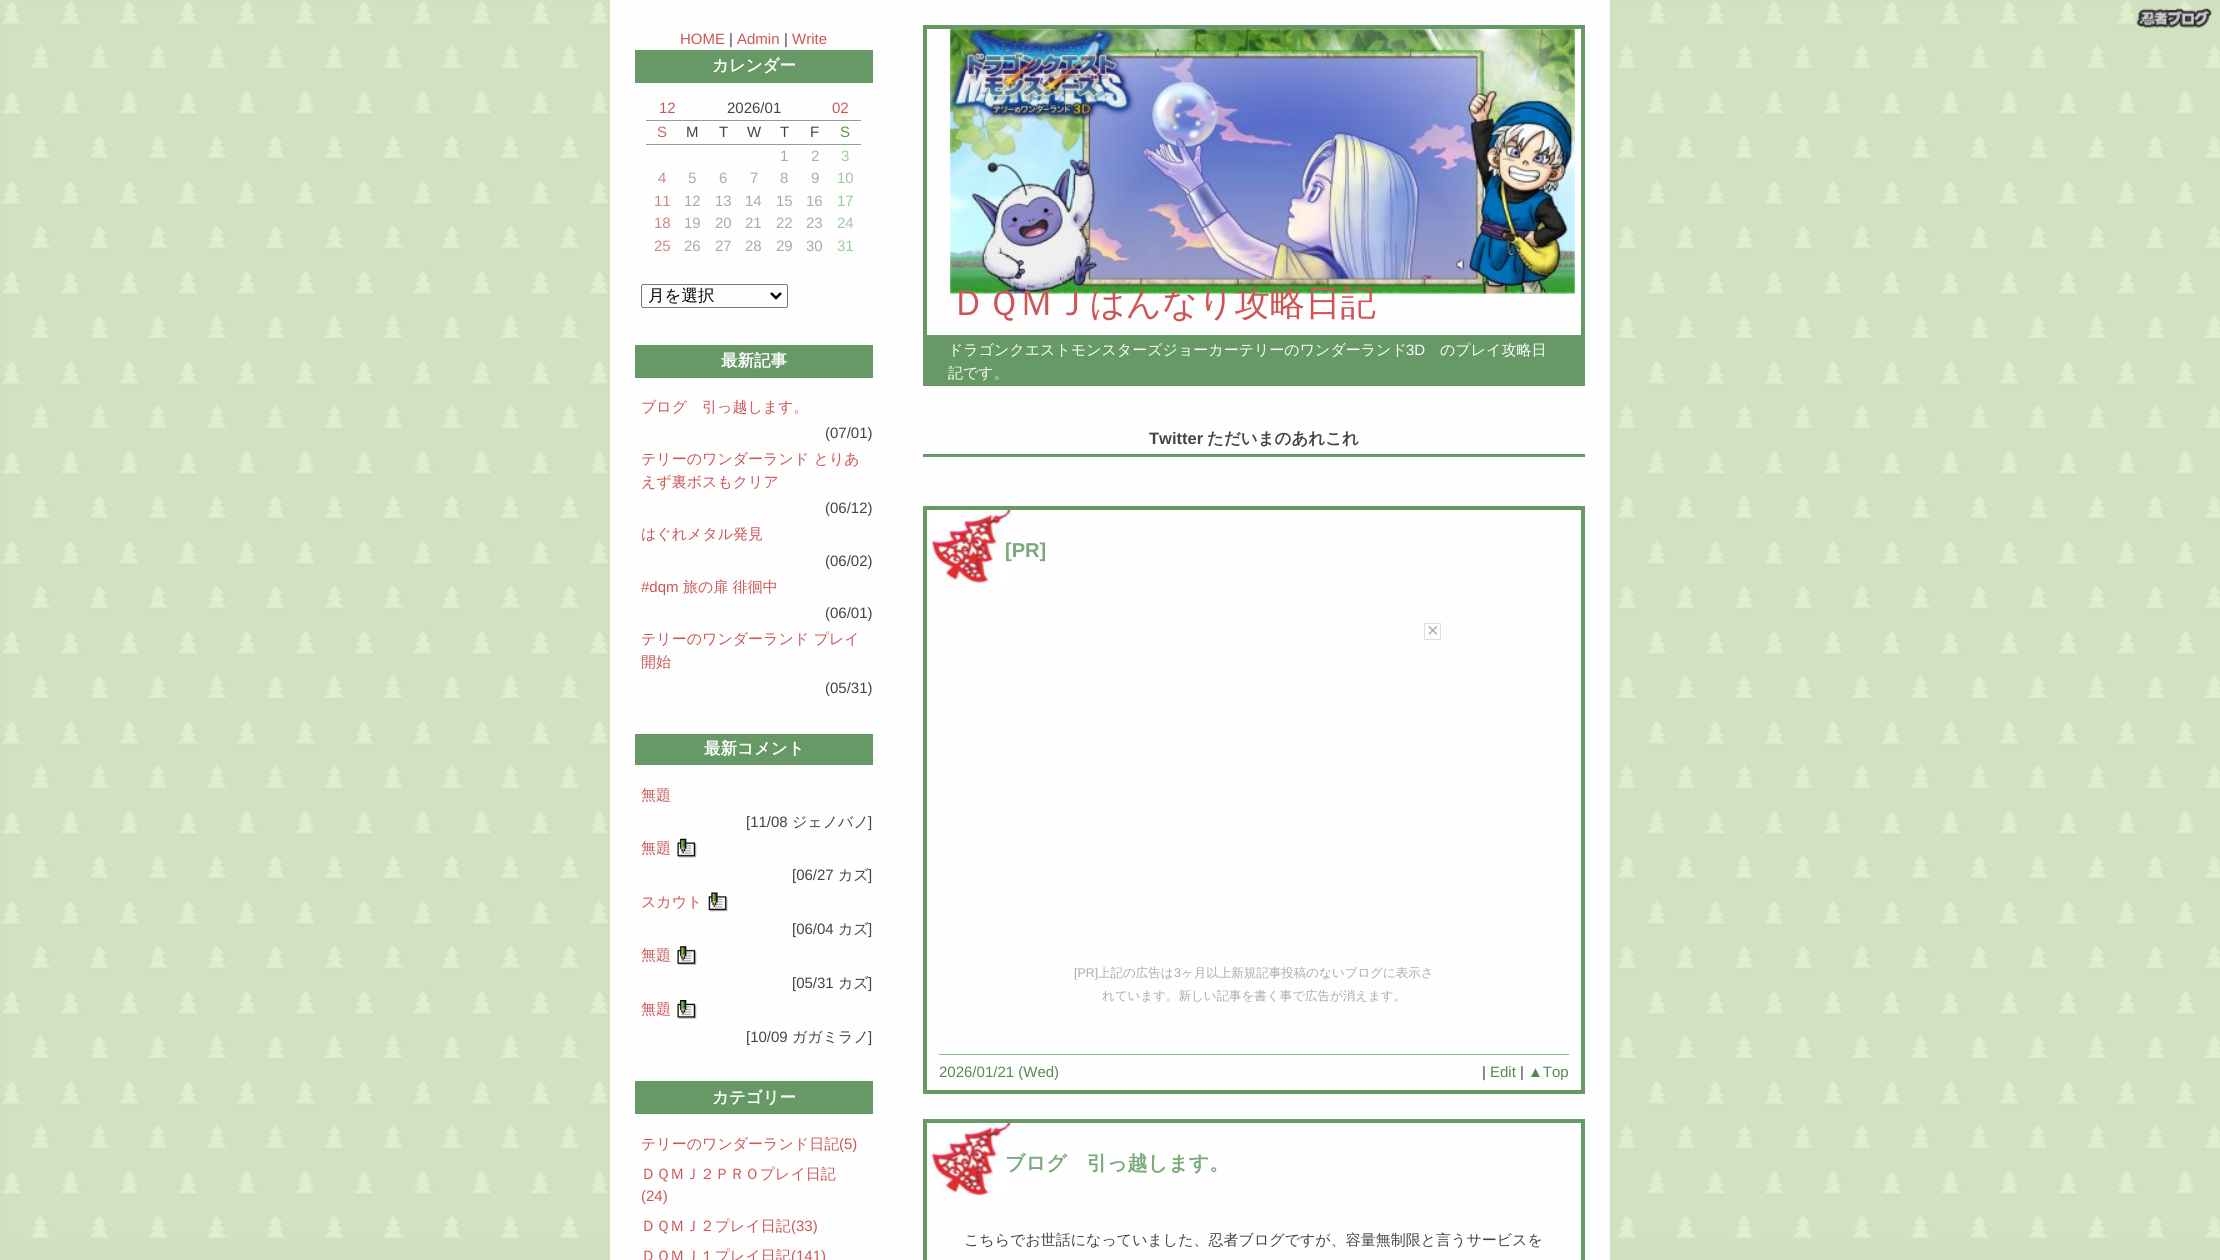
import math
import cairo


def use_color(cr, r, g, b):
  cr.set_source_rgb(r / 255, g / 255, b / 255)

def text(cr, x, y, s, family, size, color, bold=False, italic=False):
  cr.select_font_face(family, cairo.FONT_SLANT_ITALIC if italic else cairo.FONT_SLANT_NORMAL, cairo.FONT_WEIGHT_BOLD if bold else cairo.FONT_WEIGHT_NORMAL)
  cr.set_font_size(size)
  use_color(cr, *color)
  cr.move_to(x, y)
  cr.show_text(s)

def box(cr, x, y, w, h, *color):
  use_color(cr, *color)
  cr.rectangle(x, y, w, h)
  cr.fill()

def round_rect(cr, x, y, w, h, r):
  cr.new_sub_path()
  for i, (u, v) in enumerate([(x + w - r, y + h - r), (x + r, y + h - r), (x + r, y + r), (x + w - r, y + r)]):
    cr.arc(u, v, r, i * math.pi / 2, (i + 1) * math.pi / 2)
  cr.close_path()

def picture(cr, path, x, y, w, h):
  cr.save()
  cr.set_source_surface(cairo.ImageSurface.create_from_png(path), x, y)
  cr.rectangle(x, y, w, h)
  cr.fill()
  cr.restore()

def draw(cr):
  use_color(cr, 209, 224, 193)
  cr.paint()
  picture(cr, "img_01.png", 2, 1, 2218, 1237)
  picture(cr, "img_02.png", 2136, 8, 76, 20)
  box(cr, 610, 0, 1000, 1260, 255, 254, 254)
  box(cr, 635, 50, 238, 33, 102, 153, 102)
  box(cr, 646, 120, 215, 1, 153, 153, 153)
  box(cr, 646, 144, 215, 1, 153, 153, 153)
  round_rect(cr, 641.5, 284.5, 146, 23, 2)
  use_color(cr, 118, 118, 118)
  cr.set_line_width(1)
  cr.stroke()
  cr.new_path()
  cr.move_to(771, 293)
  cr.line_to(776, 298)
  cr.line_to(781, 293)
  use_color(cr, 0, 0, 0)
  cr.set_line_width(2.5)
  cr.stroke()
  box(cr, 635, 345, 238, 33, 102, 153, 102)
  box(cr, 635, 734, 238, 31, 102, 153, 102)
  picture(cr, "img_03.png", 677, 838, 20, 20)
  picture(cr, "img_04.png", 708, 892, 20, 20)
  picture(cr, "img_05.png", 677, 946, 20, 19)
  picture(cr, "img_06.png", 677, 1000, 20, 19)
  box(cr, 635, 1081, 238, 33, 102, 153, 102)
  picture(cr, "img_07.png", 950, 29, 625, 265)
  cr.rectangle(925, 27, 658, 310)
  cr.set_line_width(4)
  cr.stroke()
  box(cr, 923, 339, 662, 47, 102, 153, 102)
  box(cr, 923, 454, 662, 3, 102, 153, 102)
  picture(cr, "img_08.png", 932, 510, 80, 74)
  cr.rectangle(925, 508, 658, 584)
  cr.stroke()
  cr.rectangle(1424.5, 623.5, 16, 16)
  use_color(cr, 222, 222, 222)
  cr.set_line_width(1)
  cr.stroke()
  box(cr, 939, 1054, 630, 1, 136, 187, 136)
  picture(cr, "img_09.png", 932, 1123, 80, 73)
  cr.rectangle(925, 1121, 658, 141)
  use_color(cr, 102, 153, 102)
  cr.set_line_width(4)
  cr.stroke()
  text(cr, 680, 44, "HOME", "Liberation Sans", 15, (205, 85, 85))
  text(cr, 729, 44, "|", "Liberation Sans", 15, (68, 68, 68))
  text(cr, 737, 44, "Admin", "Liberation Sans", 15, (205, 85, 85))
  text(cr, 784, 44, "|", "Liberation Sans", 15, (68, 68, 68))
  text(cr, 792, 44, "Write", "Liberation Sans", 15, (205, 85, 85))
  text(cr, 712, 71, "カレンダー", "WenQuanYi Zen Hei", 16.5, (255, 255, 255), bold=True)
  text(cr, 659, 113, "12", "Liberation Sans", 15, (205, 85, 85))
  text(cr, 727, 113, "2026/01", "Liberation Sans", 15, (68, 68, 68))
  text(cr, 832, 113, "02", "Liberation Sans", 15, (205, 85, 85))
  text(cr, 657, 137, "S", "Liberation Sans", 15, (204, 102, 102))
  text(cr, 686, 137, "M", "Liberation Sans", 15, (68, 68, 68))
  text(cr, 719, 137, "T", "Liberation Sans", 15, (68, 68, 68))
  text(cr, 747, 137, "W", "Liberation Sans", 15, (68, 68, 68))
  text(cr, 780, 137, "T", "Liberation Sans", 15, (68, 68, 68))
  text(cr, 810, 137, "F", "Liberation Sans", 15, (68, 68, 68))
  text(cr, 840, 137, "S", "Liberation Sans", 15, (102, 153, 51))
  text(cr, 780, 161, "1", "Liberation Sans", 15, (170, 170, 170))
  text(cr, 811, 161, "2", "Liberation Sans", 15, (170, 170, 170))
  text(cr, 841, 161, "3", "Liberation Sans", 15, (153, 204, 153))
  text(cr, 658, 183, "4", "Liberation Sans", 15, (204, 136, 136))
  text(cr, 688, 183, "5", "Liberation Sans", 15, (170, 170, 170))
  text(cr, 719, 183, "6", "Liberation Sans", 15, (170, 170, 170))
  text(cr, 750, 183, "7", "Liberation Sans", 15, (170, 170, 170))
  text(cr, 780, 183, "8", "Liberation Sans", 15, (170, 170, 170))
  text(cr, 811, 183, "9", "Liberation Sans", 15, (170, 170, 170))
  text(cr, 837, 183, "10", "Liberation Sans", 15, (153, 204, 153))
  text(cr, 654, 206, "11", "Liberation Sans", 15, (204, 136, 136))
  text(cr, 684, 206, "12", "Liberation Sans", 15, (170, 170, 170))
  text(cr, 715, 206, "13", "Liberation Sans", 15, (170, 170, 170))
  text(cr, 745, 206, "14", "Liberation Sans", 15, (170, 170, 170))
  text(cr, 776, 206, "15", "Liberation Sans", 15, (170, 170, 170))
  text(cr, 806, 206, "16", "Liberation Sans", 15, (170, 170, 170))
  text(cr, 837, 206, "17", "Liberation Sans", 15, (153, 204, 153))
  text(cr, 654, 228, "18", "Liberation Sans", 15, (204, 136, 136))
  text(cr, 684, 228, "19", "Liberation Sans", 15, (170, 170, 170))
  text(cr, 715, 228, "20", "Liberation Sans", 15, (170, 170, 170))
  text(cr, 745, 228, "21", "Liberation Sans", 15, (170, 170, 170))
  text(cr, 776, 228, "22", "Liberation Sans", 15, (170, 170, 170))
  text(cr, 806, 228, "23", "Liberation Sans", 15, (170, 170, 170))
  text(cr, 837, 228, "24", "Liberation Sans", 15, (153, 204, 153))
  text(cr, 654, 251, "25", "Liberation Sans", 15, (204, 136, 136))
  text(cr, 684, 251, "26", "Liberation Sans", 15, (170, 170, 170))
  text(cr, 715, 251, "27", "Liberation Sans", 15, (170, 170, 170))
  text(cr, 745, 251, "28", "Liberation Sans", 15, (170, 170, 170))
  text(cr, 776, 251, "29", "Liberation Sans", 15, (170, 170, 170))
  text(cr, 806, 251, "30", "Liberation Sans", 15, (170, 170, 170))
  text(cr, 837, 251, "31", "Liberation Sans", 15, (153, 204, 153))
  text(cr, 648, 301, "月を選択", "WenQuanYi Zen Hei Medium", 16.5, (0, 0, 0))
  text(cr, 721, 366, "最新記事", "WenQuanYi Zen Hei", 16.5, (255, 255, 255), bold=True)
  text(cr, 641, 412, "ブログ　引っ越します。", "WenQuanYi Zen Hei Medium", 15, (205, 85, 85))
  text(cr, 825, 438, "(07/01)", "Liberation Sans", 15, (68, 68, 68))
  text(cr, 641, 464, "テリーのワンダーランド とりあ", "WenQuanYi Zen Hei Medium", 15, (205, 85, 85))
  text(cr, 641, 487, "えず裏ボスもクリア", "WenQuanYi Zen Hei Medium", 15, (205, 85, 85))
  text(cr, 825, 513, "(06/12)", "Liberation Sans", 15, (68, 68, 68))
  text(cr, 641, 539, "はぐれメタル発見", "WenQuanYi Zen Hei Medium", 15, (205, 85, 85))
  text(cr, 825, 566, "(06/02)", "Liberation Sans", 15, (68, 68, 68))
  text(cr, 641, 592, "#dqm", "Liberation Sans", 15, (205, 85, 85))
  text(cr, 683, 592, "旅の扉 徘徊中", "WenQuanYi Zen Hei Medium", 15, (205, 85, 85))
  text(cr, 825, 618, "(06/01)", "Liberation Sans", 15, (68, 68, 68))
  text(cr, 641, 644, "テリーのワンダーランド プレイ", "WenQuanYi Zen Hei Medium", 15, (205, 85, 85))
  text(cr, 641, 667, "開始", "WenQuanYi Zen Hei Medium", 15, (205, 85, 85))
  text(cr, 825, 693, "(05/31)", "Liberation Sans", 15, (68, 68, 68))
  text(cr, 704, 754, "最新コメント", "WenQuanYi Zen Hei", 16.5, (255, 255, 255), bold=True)
  text(cr, 641, 800, "無題", "WenQuanYi Zen Hei Medium", 15, (205, 85, 85))
  text(cr, 746, 827, "[11/08", "Liberation Sans", 15, (68, 68, 68))
  text(cr, 792, 827, "ジェノバノ", "WenQuanYi Zen Hei Medium", 15, (68, 68, 68))
  text(cr, 868, 827, "]", "Liberation Sans", 15, (68, 68, 68))
  text(cr, 641, 853, "無題", "WenQuanYi Zen Hei Medium", 15, (205, 85, 85))
  text(cr, 792, 880, "[06/27", "Liberation Sans", 15, (68, 68, 68))
  text(cr, 838, 880, "カズ", "WenQuanYi Zen Hei Medium", 15, (68, 68, 68))
  text(cr, 868, 880, "]", "Liberation Sans", 15, (68, 68, 68))
  text(cr, 641, 907, "スカウト", "WenQuanYi Zen Hei Medium", 15, (205, 85, 85))
  text(cr, 792, 934, "[06/04", "Liberation Sans", 15, (68, 68, 68))
  text(cr, 838, 934, "カズ", "WenQuanYi Zen Hei Medium", 15, (68, 68, 68))
  text(cr, 868, 934, "]", "Liberation Sans", 15, (68, 68, 68))
  text(cr, 641, 960, "無題", "WenQuanYi Zen Hei Medium", 15, (205, 85, 85))
  text(cr, 792, 988, "[05/31", "Liberation Sans", 15, (68, 68, 68))
  text(cr, 838, 988, "カズ", "WenQuanYi Zen Hei Medium", 15, (68, 68, 68))
  text(cr, 868, 988, "]", "Liberation Sans", 15, (68, 68, 68))
  text(cr, 641, 1014, "無題", "WenQuanYi Zen Hei Medium", 15, (205, 85, 85))
  text(cr, 746, 1042, "[10/09", "Liberation Sans", 15, (68, 68, 68))
  text(cr, 792, 1042, "ガガミラノ", "WenQuanYi Zen Hei Medium", 15, (68, 68, 68))
  text(cr, 868, 1042, "]", "Liberation Sans", 15, (68, 68, 68))
  text(cr, 712, 1103, "カテゴリー", "WenQuanYi Zen Hei", 16.5, (255, 255, 255), bold=True)
  text(cr, 641, 1149, "テリーのワンダーランド日記", "WenQuanYi Zen Hei Medium", 15, (205, 85, 85))
  text(cr, 839, 1149, "(5)", "Liberation Sans", 15, (205, 85, 85))
  text(cr, 641, 1179, "ＤＱＭＪ２ＰＲＯプレイ日記", "WenQuanYi Zen Hei Medium", 15, (205, 85, 85))
  text(cr, 641, 1201, "(24)", "Liberation Sans", 15, (205, 85, 85))
  text(cr, 641, 1231, "ＤＱＭＪ２プレイ日記", "WenQuanYi Zen Hei Medium", 15, (205, 85, 85))
  text(cr, 791, 1231, "(33)", "Liberation Sans", 15, (205, 85, 85))
  text(cr, 641, 1261, "ＤＱＭＪ１プレイ日記", "WenQuanYi Zen Hei Medium", 15, (205, 85, 85))
  text(cr, 791, 1261, "(141)", "Liberation Sans", 15, (205, 85, 85))
  text(cr, 951, 315, "ＤＱＭＪはんなり攻略日記", "WenQuanYi Zen Hei Medium", 35.4, (205, 85, 85))
  text(cr, 948, 355, "ドラゴンクエストモンスターズジョーカーテリーのワンダーランド", "WenQuanYi Zen Hei Medium", 15, (255, 255, 255))
  text(cr, 1406, 355, "3D", "Liberation Sans", 15, (255, 255, 255))
  text(cr, 1440, 355, "のプレイ攻略日", "WenQuanYi Zen Hei Medium", 15, (255, 255, 255))
  text(cr, 948, 378, "記です。", "WenQuanYi Zen Hei Medium", 15, (255, 255, 255))
  text(cr, 1149, 444, "Twitter", "Liberation Sans", 16.5, (68, 68, 68), bold=True)
  text(cr, 1207, 444, "ただいまのあれこれ", "WenQuanYi Zen Hei", 16.5, (68, 68, 68), bold=True)
  text(cr, 1005, 557, "[PR]", "Liberation Sans", 20.1, (119, 170, 119), bold=True)
  text(cr, 1427, 637, "×", "Liberation Sans", 20, (170, 170, 170))
  text(cr, 1074, 977, "[PR]", "Liberation Sans", 12.5, (170, 170, 170))
  text(cr, 1098, 977, "上記の広告は", "WenQuanYi Zen Hei Medium", 12.5, (170, 170, 170))
  text(cr, 1174, 977, "3", "Liberation Sans", 12.5, (170, 170, 170))
  text(cr, 1181, 977, "ヶ月以上新規記事投稿のないブログに表示さ", "WenQuanYi Zen Hei Medium", 12.5, (170, 170, 170))
  text(cr, 1102, 1000, "れています。新しい記事を書く事で広告が消えます。", "WenQuanYi Zen Hei Medium", 12.5, (170, 170, 170))
  text(cr, 939, 1077, "2026/01/21 (Wed)", "Liberation Sans", 15, (85, 136, 85))
  text(cr, 1482, 1077, "|", "Liberation Sans", 15, (68, 68, 68))
  text(cr, 1490, 1077, "Edit", "Liberation Sans", 15, (85, 136, 85))
  text(cr, 1520, 1077, "|", "Liberation Sans", 15, (68, 68, 68))
  text(cr, 1528, 1077, "▲Top", "Liberation Sans", 15, (85, 136, 85))
  text(cr, 1005, 1170, "ブログ　引っ越します。", "WenQuanYi Zen Hei", 20.1, (119, 170, 119), bold=True)
  text(cr, 964, 1245, "こちらでお世話になっていました、忍者ブログですが、容量無制限と言うサービスを", "WenQuanYi Zen Hei Medium", 15, (68, 68, 68))


surface = cairo.ImageSurface(cairo.FORMAT_RGB24, 2220, 1260)
cr = cairo.Context(surface)
options = cairo.FontOptions()
options.set_hint_metrics(cairo.HINT_METRICS_OFF)
options.set_hint_style(cairo.HINT_STYLE_NONE)
cr.set_font_options(options)
cr.set_miter_limit(4)
draw(cr)
surface.write_to_png("out.png")
